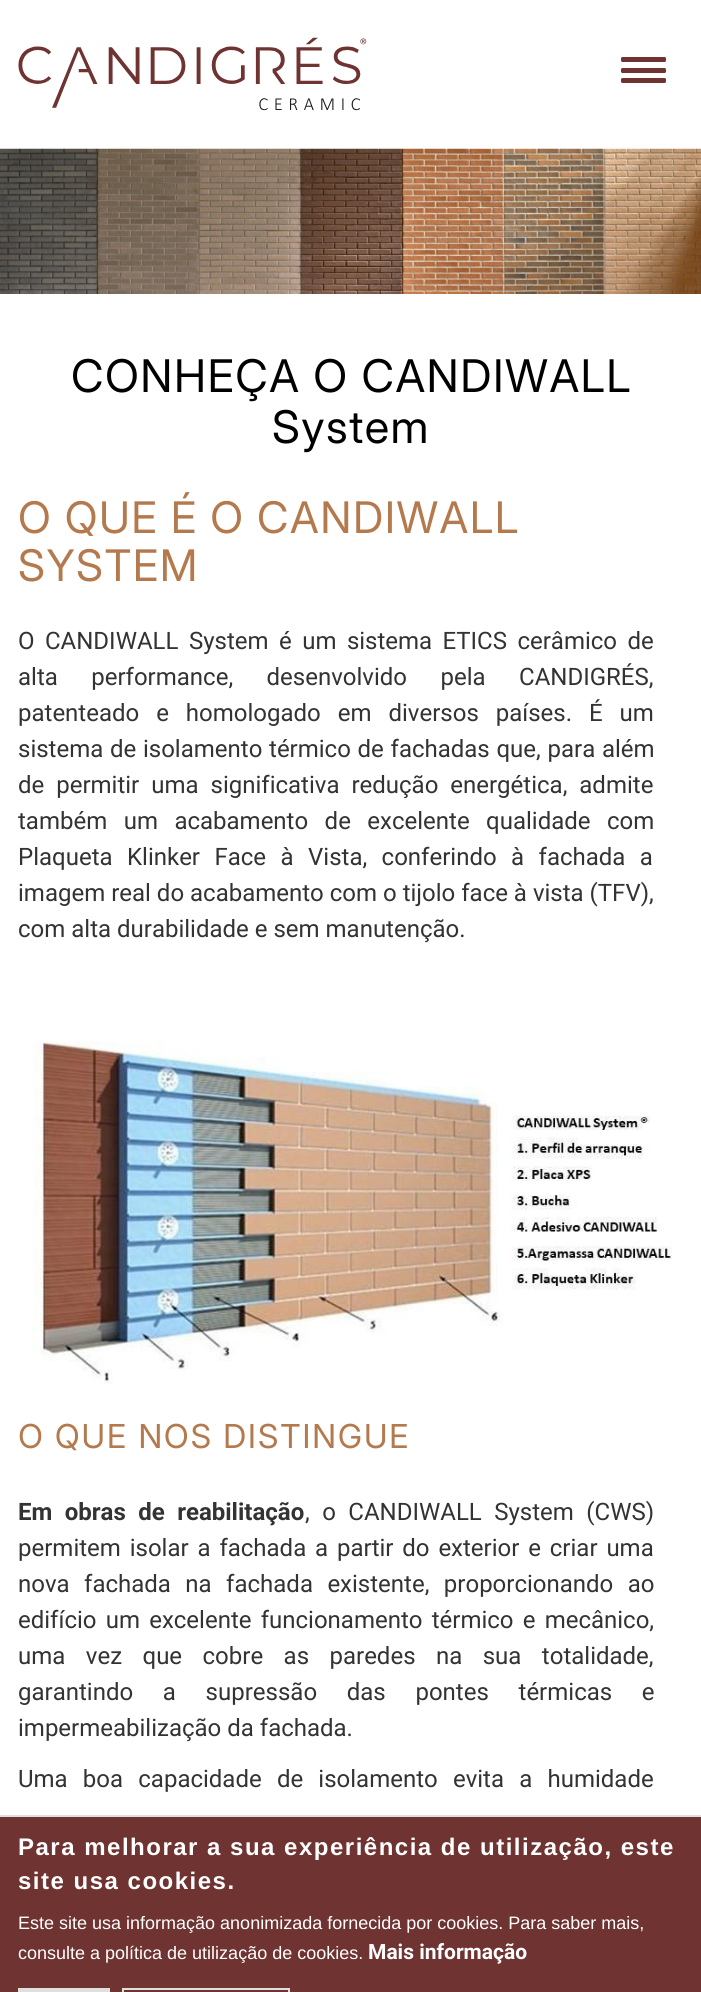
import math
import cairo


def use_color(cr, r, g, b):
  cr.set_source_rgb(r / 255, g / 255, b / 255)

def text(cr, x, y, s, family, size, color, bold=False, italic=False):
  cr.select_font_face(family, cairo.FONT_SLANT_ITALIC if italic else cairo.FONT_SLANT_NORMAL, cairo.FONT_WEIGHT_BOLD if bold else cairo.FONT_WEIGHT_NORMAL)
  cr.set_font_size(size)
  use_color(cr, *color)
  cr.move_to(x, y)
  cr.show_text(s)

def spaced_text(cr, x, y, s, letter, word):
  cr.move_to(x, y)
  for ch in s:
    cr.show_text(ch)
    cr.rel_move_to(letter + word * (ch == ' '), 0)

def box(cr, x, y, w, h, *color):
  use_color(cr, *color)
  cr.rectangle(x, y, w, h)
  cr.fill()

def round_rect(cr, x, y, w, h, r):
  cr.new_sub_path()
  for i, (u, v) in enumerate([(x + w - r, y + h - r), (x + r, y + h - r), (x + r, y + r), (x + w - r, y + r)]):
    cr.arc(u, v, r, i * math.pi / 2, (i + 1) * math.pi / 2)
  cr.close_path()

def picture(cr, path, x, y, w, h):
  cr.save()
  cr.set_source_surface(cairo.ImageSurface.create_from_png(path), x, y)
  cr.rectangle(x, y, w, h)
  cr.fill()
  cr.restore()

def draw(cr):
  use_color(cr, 255, 255, 255)
  cr.paint()
  picture(cr, "img_01.png", 18, 37, 349, 74)
  use_color(cr, 111, 51, 50)
  round_rect(cr, 621, 57, 45, 5, 1.5)
  cr.fill()
  round_rect(cr, 621, 68, 45, 5, 1.5)
  cr.fill()
  round_rect(cr, 621, 78, 45, 5, 1.5)
  cr.fill()
  picture(cr, "img_02.png", 0, 148, 701, 146)
  picture(cr, "img_03.png", 32, 1041, 640, 343)
  box(cr, 0, 1817, 701, 175, 111, 51, 50)
  box(cr, 0, 1815, 701, 2, 223, 223, 223)
  box(cr, 18, 1988, 92, 4, 223, 223, 223)
  cr.rectangle(123, 1989, 166, 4)
  cr.stroke()
  cr.select_font_face("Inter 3")
  cr.set_font_size(45)
  use_color(cr, 0, 0, 0)
  spaced_text(cr, 71, 392, "CONHEÇA O CANDIWALL", 1.5, 0)
  spaced_text(cr, 272, 443, "System", 1.5, 0)
  cr.select_font_face("Inter")
  cr.set_font_size(43.5)
  use_color(cr, 180, 121, 77)
  spaced_text(cr, 18, 533, "O QUE É O CANDIWALL", 1.5, 0)
  spaced_text(cr, 18, 581, "SYSTEM", 1.5, 0)
  cr.select_font_face("Roboto")
  cr.set_font_size(24)
  use_color(cr, 51, 51, 51)
  spaced_text(cr, 18, 649, "O CANDIWALL System é um sistema ETICS cerâmico de", 0, 4.5)
  spaced_text(cr, 18, 685, "alta performance, desenvolvido pela CANDIGRÉS,", 0, 27.5)
  spaced_text(cr, 18, 721, "patenteado e homologado em diversos países. É um", 0, 11)
  spaced_text(cr, 18, 757, "sistema de isolamento térmico de fachadas que, para além", 0, 0.75)
  spaced_text(cr, 18, 793, "de permitir uma significativa redução energética, admite", 0, 6)
  spaced_text(cr, 18, 829, "também um acabamento de excelente qualidade com", 0, 10.5)
  spaced_text(cr, 18, 865, "Plaqueta Klinker Face à Vista, conferindo à fachada a", 0, 8.5)
  text(cr, 18, 901, "imagem real do acabamento com o tijolo face à vista (TFV),", "Roboto", 24, (51, 51, 51))
  text(cr, 18, 937, "com alta durabilidade e sem manutenção.", "Roboto", 24, (51, 51, 51))
  cr.select_font_face("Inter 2")
  cr.set_font_size(33)
  use_color(cr, 180, 121, 77)
  spaced_text(cr, 18, 1448, "O QUE NOS DISTINGUE", 1.5, 0)
  cr.select_font_face("Roboto", cairo.FONT_SLANT_NORMAL, cairo.FONT_WEIGHT_BOLD)
  cr.set_font_size(24)
  use_color(cr, 51, 51, 51)
  spaced_text(cr, 18, 1520, "Em obras de reabilitação", 0, 6.5)
  cr.select_font_face("Roboto")
  spaced_text(cr, 305, 1520, ", o CANDIWALL System (CWS)", 0, 6.5)
  spaced_text(cr, 18, 1556, "permitem isolar a fachada a partir do exterior e criar uma", 0, 2.9)
  spaced_text(cr, 18, 1592, "nova fachada na fachada existente, proporcionando ao", 0, 8.5)
  spaced_text(cr, 18, 1628, "edifício um excelente funcionamento térmico e mecânico,", 0, 3.25)
  spaced_text(cr, 18, 1664, "uma vez que cobre as paredes na sua totalidade,", 0, 14.5)
  spaced_text(cr, 18, 1700, "garantindo a supressão das pontes térmicas e", 0, 23.75)
  text(cr, 18, 1736, "impermeabilização da fachada.", "Roboto", 24, (51, 51, 51))
  spaced_text(cr, 18, 1787, "Uma boa capacidade de isolamento evita a humidade", 0, 9.25)
  cr.select_font_face("Liberation Sans", cairo.FONT_SLANT_NORMAL, cairo.FONT_WEIGHT_BOLD)
  use_color(cr, 255, 255, 255)
  spaced_text(cr, 18, 1855, "Para melhorar a sua experiência de utilização, este", 1.5, 0)
  spaced_text(cr, 18, 1889, "site usa cookies.", 1.5, 0)
  text(cr, 18, 1929, "Este site usa informação anonimizada fornecida por cookies. Para saber mais,", "Liberation Sans", 18, (255, 255, 255))
  text(cr, 18, 1959, "consulte a política de utilização de cookies.", "Liberation Sans", 18, (255, 255, 255))
  text(cr, 368, 1959, "Mais informação", "Roboto", 21, (255, 255, 255), bold=True)


surface = cairo.ImageSurface(cairo.FORMAT_RGB24, 701, 1992)
cr = cairo.Context(surface)
options = cairo.FontOptions()
options.set_hint_metrics(cairo.HINT_METRICS_OFF)
options.set_hint_style(cairo.HINT_STYLE_NONE)
cr.set_font_options(options)
cr.set_miter_limit(4)
draw(cr)
surface.write_to_png("out.png")
